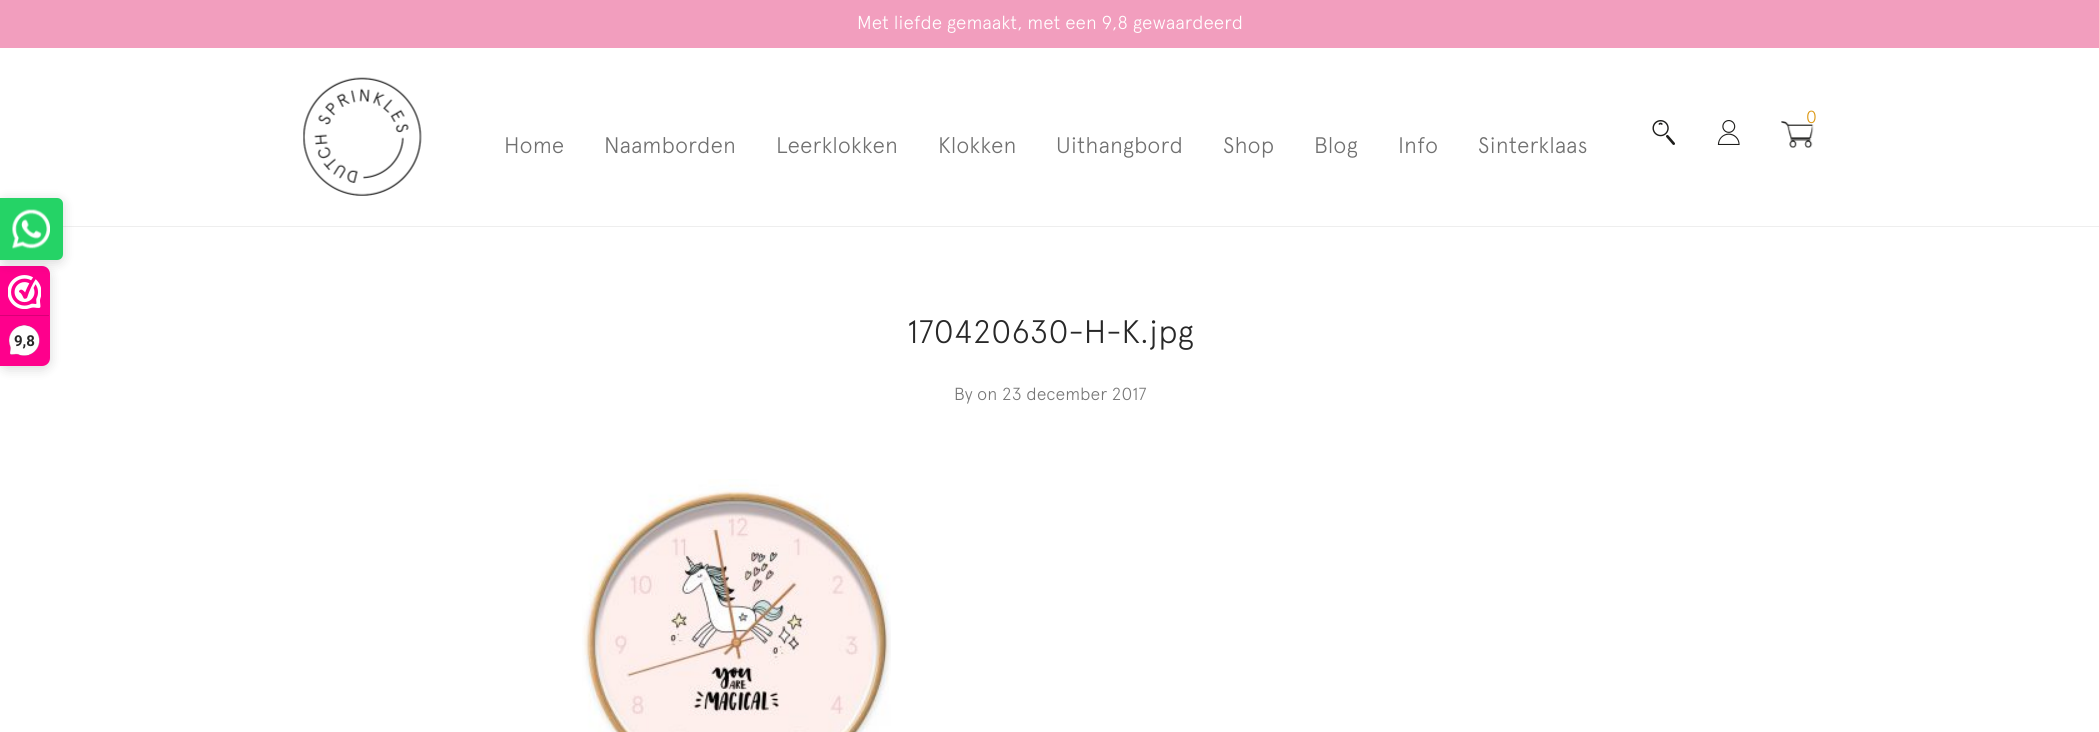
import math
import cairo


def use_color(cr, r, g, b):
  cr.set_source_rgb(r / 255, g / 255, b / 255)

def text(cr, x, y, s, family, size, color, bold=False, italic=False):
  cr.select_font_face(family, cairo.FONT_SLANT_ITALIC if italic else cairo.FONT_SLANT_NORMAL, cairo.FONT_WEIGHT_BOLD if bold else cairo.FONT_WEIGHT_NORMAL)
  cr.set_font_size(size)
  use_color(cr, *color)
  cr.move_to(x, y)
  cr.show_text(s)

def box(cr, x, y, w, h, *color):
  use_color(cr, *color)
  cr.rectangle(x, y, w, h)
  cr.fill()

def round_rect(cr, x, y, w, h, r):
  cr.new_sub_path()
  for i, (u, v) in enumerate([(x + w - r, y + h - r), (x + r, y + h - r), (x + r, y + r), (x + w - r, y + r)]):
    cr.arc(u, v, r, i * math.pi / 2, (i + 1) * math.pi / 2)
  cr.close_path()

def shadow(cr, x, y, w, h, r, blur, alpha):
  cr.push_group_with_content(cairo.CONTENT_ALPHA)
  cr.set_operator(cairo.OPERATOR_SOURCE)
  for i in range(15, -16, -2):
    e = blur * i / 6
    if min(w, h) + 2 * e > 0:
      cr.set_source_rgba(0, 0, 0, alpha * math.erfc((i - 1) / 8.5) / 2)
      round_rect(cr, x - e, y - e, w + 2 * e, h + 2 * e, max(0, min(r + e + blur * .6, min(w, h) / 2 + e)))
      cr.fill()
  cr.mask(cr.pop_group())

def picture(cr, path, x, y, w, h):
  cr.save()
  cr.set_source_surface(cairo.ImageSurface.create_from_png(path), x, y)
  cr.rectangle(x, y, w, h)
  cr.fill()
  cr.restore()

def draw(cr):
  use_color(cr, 255, 255, 255)
  cr.paint()
  use_color(cr, 0, 0, 0)
  shadow(cr, 0, 269, 50, 100, 8, 6, 0.15)
  use_color(cr, 254, 0, 140)
  cr.new_path()
  cr.move_to(0, 266)
  cr.line_to(42, 266)
  cr.curve_to(46.5, 266, 50, 269.5, 50, 274)
  cr.line_to(50, 358)
  cr.curve_to(50, 362.5, 46.5, 366, 42, 366)
  cr.line_to(0, 366)
  cr.close_path()
  cr.fill()
  picture(cr, "img_01.png", 8, 275, 33, 34)
  box(cr, 0, 315, 49, 1, 216, 0, 119)
  picture(cr, "img_02.png", 9, 325, 31, 31)
  box(cr, 63, 226, 2036, 1, 238, 238, 238)
  use_color(cr, 0, 0, 0)
  shadow(cr, 0, 200, 63, 63, 6, 6, 0.15)
  use_color(cr, 37, 211, 102)
  cr.new_path()
  cr.move_to(0, 198)
  cr.line_to(57, 198)
  cr.curve_to(60.5, 198, 63, 200.5, 63, 204)
  cr.line_to(63, 254)
  cr.curve_to(63, 257.5, 60.5, 260, 57, 260)
  cr.line_to(0, 260)
  cr.close_path()
  cr.fill()
  picture(cr, "img_03.png", 12, 209, 38, 40)
  box(cr, 0, 0, 2099, 48, 242, 158, 190)
  picture(cr, "img_04.png", 303, 77, 119, 119)
  picture(cr, "img_05.png", 1781, 121, 33, 27)
  picture(cr, "img_06.png", 1652, 120, 23, 25)
  picture(cr, "img_07.png", 1717, 120, 23, 25)
  picture(cr, "img_08.png", 582, 479, 309, 253)
  text(cr, 14, 346, "9,8", "Roboto", 15, (40, 40, 40), bold=True)
  text(cr, 857, 29, "Met liefde gemaakt, met een 9,8 gewaardeerd", "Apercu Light", 18.75, (255, 255, 255))
  text(cr, 1806, 123, "0", "Apercu Light", 17.5, (220, 152, 20))
  text(cr, 504, 153, "Home", "Apercu Light", 22.5, (112, 112, 112))
  text(cr, 604, 153, "Naamborden", "Apercu Light", 22.5, (112, 112, 112))
  text(cr, 776, 153, "Leerklokken", "Apercu Light", 22.5, (112, 112, 112))
  text(cr, 938, 153, "Klokken", "Apercu Light", 22.5, (112, 112, 112))
  text(cr, 1056, 153, "Uithangbord", "Apercu Light", 22.5, (112, 112, 112))
  text(cr, 1223, 153, "Shop", "Apercu Light", 22.5, (112, 112, 112))
  text(cr, 1314, 153, "Blog", "Apercu Light", 22.5, (112, 112, 112))
  text(cr, 1398, 153, "Info", "Apercu Light", 22.5, (112, 112, 112))
  text(cr, 1478, 153, "Sinterklaas", "Apercu Light", 22.5, (112, 112, 112))
  text(cr, 907, 343, "170420630-H-K.jpg", "Apercu Light", 32.5, (40, 40, 40))
  text(cr, 954, 400, "By on 23 december 2017", "Apercu Light", 17.5, (119, 119, 119))


surface = cairo.ImageSurface(cairo.FORMAT_RGB24, 2099, 732)
cr = cairo.Context(surface)
options = cairo.FontOptions()
options.set_hint_metrics(cairo.HINT_METRICS_OFF)
options.set_hint_style(cairo.HINT_STYLE_NONE)
cr.set_font_options(options)
cr.set_miter_limit(4)
draw(cr)
surface.write_to_png("out.png")
